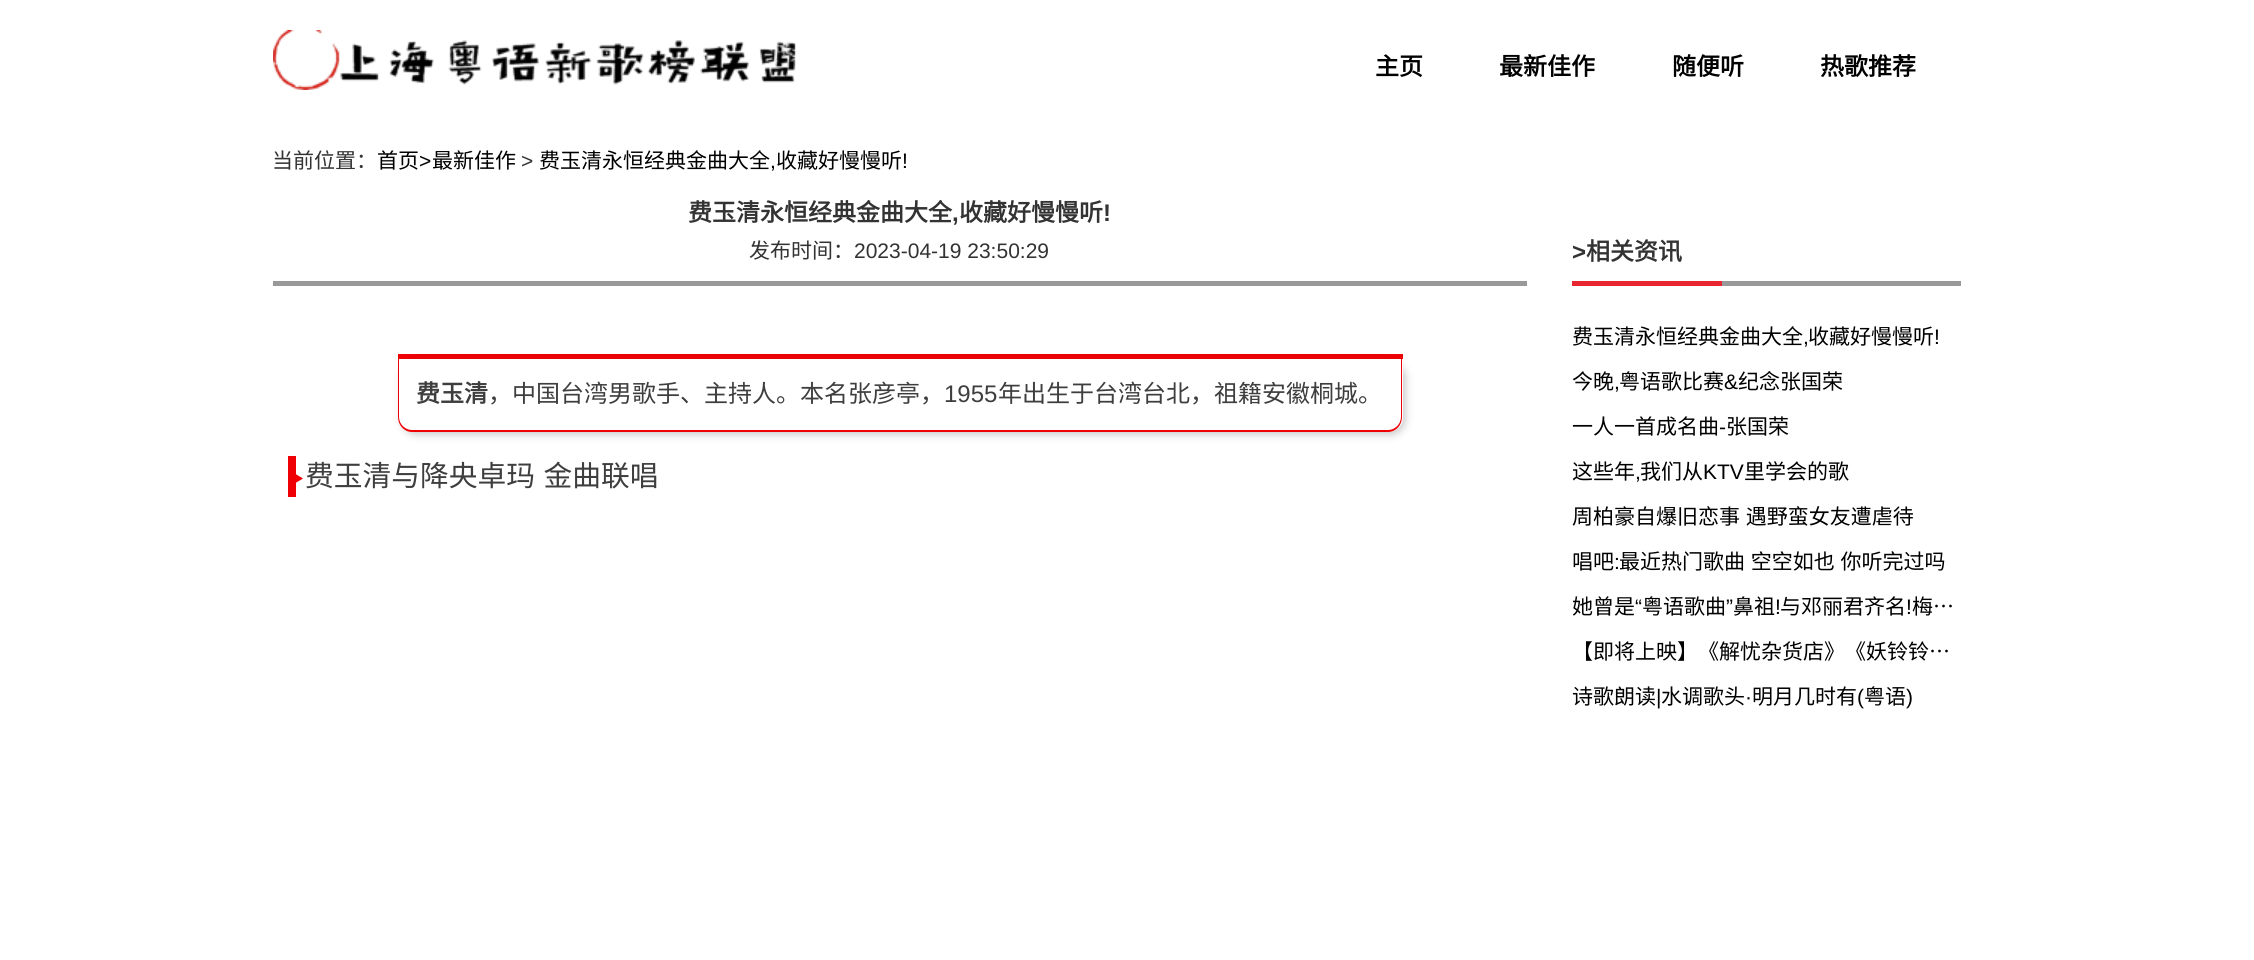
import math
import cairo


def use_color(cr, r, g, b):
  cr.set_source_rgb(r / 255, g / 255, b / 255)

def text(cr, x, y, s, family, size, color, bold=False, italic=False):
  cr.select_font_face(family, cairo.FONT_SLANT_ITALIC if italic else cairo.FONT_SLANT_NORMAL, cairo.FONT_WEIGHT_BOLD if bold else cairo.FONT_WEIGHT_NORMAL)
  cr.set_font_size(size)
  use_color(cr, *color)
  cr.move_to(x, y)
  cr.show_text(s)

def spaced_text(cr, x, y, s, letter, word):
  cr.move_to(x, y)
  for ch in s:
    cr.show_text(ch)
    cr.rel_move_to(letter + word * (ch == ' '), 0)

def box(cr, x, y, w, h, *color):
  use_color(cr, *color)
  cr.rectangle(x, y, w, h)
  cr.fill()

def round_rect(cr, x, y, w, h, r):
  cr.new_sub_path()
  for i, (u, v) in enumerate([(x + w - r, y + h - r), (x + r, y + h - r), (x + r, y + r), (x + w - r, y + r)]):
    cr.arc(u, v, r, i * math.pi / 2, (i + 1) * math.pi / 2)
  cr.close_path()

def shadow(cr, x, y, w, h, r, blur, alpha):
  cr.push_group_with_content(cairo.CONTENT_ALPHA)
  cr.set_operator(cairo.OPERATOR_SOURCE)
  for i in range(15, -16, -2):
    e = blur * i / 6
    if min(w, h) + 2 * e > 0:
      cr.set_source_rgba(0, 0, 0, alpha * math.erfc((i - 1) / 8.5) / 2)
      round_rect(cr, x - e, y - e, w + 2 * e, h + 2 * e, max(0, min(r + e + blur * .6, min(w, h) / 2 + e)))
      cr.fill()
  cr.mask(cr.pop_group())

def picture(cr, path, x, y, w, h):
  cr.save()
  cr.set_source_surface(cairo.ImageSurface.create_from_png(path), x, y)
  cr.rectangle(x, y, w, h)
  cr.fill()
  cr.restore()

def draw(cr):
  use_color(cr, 255, 255, 255)
  cr.paint()
  picture(cr, "img_01.png", 273, 30, 523, 60)
  box(cr, 273, 281, 1254, 5, 153, 153, 153)
  box(cr, 398, 354, 1005, 5, 239, 0, 4)
  cr.save()
  cr.set_fill_rule(cairo.FILL_RULE_EVEN_ODD)
  cr.new_path()
  cr.move_to(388, 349)
  cr.line_to(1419, 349)
  cr.line_to(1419, 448)
  cr.line_to(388, 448)
  cr.close_path()
  cr.move_to(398, 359)
  cr.line_to(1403, 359)
  cr.line_to(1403, 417)
  cr.curve_to(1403, 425.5, 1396.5, 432, 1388, 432)
  cr.line_to(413, 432)
  cr.curve_to(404.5, 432, 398, 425.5, 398, 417)
  cr.close_path()
  cr.clip()
  use_color(cr, 0, 0, 0)
  shadow(cr, 401, 362, 1005, 73, 15, 4, 0.2)
  cr.restore()
  cr.set_fill_rule(cairo.FILL_RULE_EVEN_ODD)
  cr.new_path()
  cr.move_to(398, 358)
  cr.line_to(1402, 358)
  cr.line_to(1402, 417)
  cr.curve_to(1402, 425, 1396, 432, 1388, 432)
  cr.line_to(412, 432)
  cr.curve_to(404, 432, 398, 425, 398, 417)
  cr.close_path()
  cr.move_to(399, 358)
  cr.line_to(1401, 358)
  cr.line_to(1401, 417)
  cr.curve_to(1401, 424, 1395, 430, 1388, 430)
  cr.line_to(412, 430)
  cr.curve_to(405, 430, 399, 424, 399, 417)
  cr.close_path()
  cr.fill()
  box(cr, 288, 456, 8, 41, 239, 0, 4)
  cr.set_fill_rule(cairo.FILL_RULE_WINDING)
  cr.new_path()
  cr.move_to(295.5, 483)
  cr.line_to(295.5, 474)
  cr.line_to(303, 478.5)
  cr.close_path()
  cr.fill()
  box(cr, 1572, 281, 150, 5, 231, 38, 47)
  box(cr, 1722, 281, 239, 5, 153, 153, 153)
  text(cr, 1375, 75, "主页", "Noto Sans CJK SC", 24, (0, 0, 0), bold=True)
  text(cr, 1499, 75, "最新佳作", "Noto Sans CJK SC", 24, (0, 0, 0), bold=True)
  text(cr, 1672, 75, "随便听", "Noto Sans CJK SC", 24, (0, 0, 0), bold=True)
  text(cr, 1820, 75, "热歌推荐", "Noto Sans CJK SC", 24, (0, 0, 0), bold=True)
  text(cr, 272, 168, "当前位置：", "Noto Sans CJK SC", 21, (51, 51, 51))
  text(cr, 377, 168, "首页", "Noto Sans CJK SC", 21, (0, 0, 0))
  text(cr, 419, 168, ">", "Liberation Sans", 21, (0, 0, 0))
  text(cr, 432, 168, "最新佳作", "Noto Sans CJK SC", 21, (0, 0, 0))
  text(cr, 521, 168, ">", "Liberation Sans", 21, (51, 51, 51))
  text(cr, 539, 168, "费玉清永恒经典金曲大全", "Noto Sans CJK SC", 21, (0, 0, 0))
  text(cr, 776, 168, "收藏好慢慢听", "Noto Sans CJK SC", 21, (0, 0, 0))
  text(cr, 902, 168, "!", "Liberation Sans", 21, (0, 0, 0))
  text(cr, 770, 168, ",", "Liberation Sans", 21, (0, 0, 0))
  text(cr, 688, 221, "费玉清永恒经典金曲大全", "Noto Sans CJK SC", 24, (51, 51, 51), bold=True)
  text(cr, 952, 221, ",", "Liberation Sans", 24, (51, 51, 51), bold=True)
  text(cr, 959, 221, "收藏好慢慢听", "Noto Sans CJK SC", 24, (51, 51, 51), bold=True)
  text(cr, 1103, 221, "!", "Liberation Sans", 24, (51, 51, 51), bold=True)
  text(cr, 749, 258, "发布时间：", "Noto Sans CJK SC", 21, (51, 51, 51))
  text(cr, 854, 258, "2023-04-19 23:50:29", "Liberation Sans", 21, (51, 51, 51))
  text(cr, 416, 402, "费玉清", "Noto Sans CJK SC", 24, (62, 62, 62), bold=True)
  text(cr, 488, 402, "，中国台湾男歌手、主持人。本名张彦亭，", "Noto Sans CJK SC", 24, (62, 62, 62))
  text(cr, 944, 402, "1955", "Liberation Sans", 24, (62, 62, 62))
  text(cr, 998, 402, "年出生于台湾台北，祖籍安徽桐城。", "Noto Sans CJK SC", 24, (62, 62, 62))
  cr.set_font_size(28.75)
  spaced_text(cr, 305, 486, "费玉清与降央卓玛 金曲联唱", 0, 2)
  text(cr, 1572, 260, ">", "Liberation Sans", 24, (51, 51, 51), bold=True)
  text(cr, 1586, 260, "相关资讯", "Noto Sans CJK SC", 24, (51, 51, 51), bold=True)
  text(cr, 1572, 344, "费玉清永恒经典金曲大全", "Noto Sans CJK SC", 21, (0, 0, 0))
  text(cr, 1803, 344, ",", "Liberation Sans", 21, (0, 0, 0))
  text(cr, 1808, 344, "收藏好慢慢听", "Noto Sans CJK SC", 21, (0, 0, 0))
  text(cr, 1934, 344, "!", "Liberation Sans", 21, (0, 0, 0))
  text(cr, 1572, 389, "今晚", "Noto Sans CJK SC", 21, (0, 0, 0))
  text(cr, 1614, 389, ",", "Liberation Sans", 21, (0, 0, 0))
  text(cr, 1619, 389, "粤语歌比赛", "Noto Sans CJK SC", 21, (0, 0, 0))
  text(cr, 1724, 389, "&", "Liberation Sans", 21, (0, 0, 0))
  text(cr, 1738, 389, "纪念张国荣", "Noto Sans CJK SC", 21, (0, 0, 0))
  text(cr, 1572, 434, "一人一首成名曲", "Noto Sans CJK SC", 21, (0, 0, 0))
  text(cr, 1719, 434, "-", "Liberation Sans", 21, (0, 0, 0))
  text(cr, 1726, 434, "张国荣", "Noto Sans CJK SC", 21, (0, 0, 0))
  text(cr, 1572, 479, "这些年", "Noto Sans CJK SC", 21, (0, 0, 0))
  text(cr, 1635, 479, ",", "Liberation Sans", 21, (0, 0, 0))
  text(cr, 1640, 479, "我们从", "Noto Sans CJK SC", 21, (0, 0, 0))
  text(cr, 1703, 479, "KTV", "Liberation Sans", 21, (0, 0, 0))
  text(cr, 1744, 479, "里学会的歌", "Noto Sans CJK SC", 21, (0, 0, 0))
  spaced_text(cr, 1572, 524, "周柏豪自爆旧恋事 遇野蛮女友遭虐待", 0, 1)
  text(cr, 1572, 569, "唱吧", "Noto Sans CJK SC", 21, (0, 0, 0))
  text(cr, 1614, 569, ":", "Liberation Sans", 21, (0, 0, 0))
  cr.select_font_face("Noto Sans CJK SC")
  spaced_text(cr, 1619, 569, "最近热门歌曲 空空如也 你听完过吗", 0, 1)
  text(cr, 1572, 614, "她曾是", "Noto Sans CJK SC", 21, (0, 0, 0))
  text(cr, 1635, 614, "“", "Liberation Sans", 21, (0, 0, 0))
  text(cr, 1642, 614, "粤语歌曲", "Noto Sans CJK SC", 21, (0, 0, 0))
  text(cr, 1726, 614, "”", "Liberation Sans", 21, (0, 0, 0))
  text(cr, 1733, 614, "鼻祖", "Noto Sans CJK SC", 21, (0, 0, 0))
  text(cr, 1775, 614, "!", "Liberation Sans", 21, (0, 0, 0))
  text(cr, 1780, 614, "与邓丽君齐名", "Noto Sans CJK SC", 21, (0, 0, 0))
  text(cr, 1906, 614, "!", "Liberation Sans", 21, (0, 0, 0))
  text(cr, 1912, 614, "梅…", "Noto Sans CJK SC", 21, (0, 0, 0))
  text(cr, 1572, 659, "【即将上映】《解忧杂货店》《妖铃铃…", "Noto Sans CJK SC", 21, (0, 0, 0))
  text(cr, 1572, 704, "诗歌朗读", "Noto Sans CJK SC", 21, (0, 0, 0))
  text(cr, 1656, 704, "|", "Liberation Sans", 21, (0, 0, 0))
  text(cr, 1661, 704, "水调歌头", "Noto Sans CJK SC", 21, (0, 0, 0))
  text(cr, 1745, 704, "·", "Liberation Sans", 21, (0, 0, 0))
  text(cr, 1752, 704, "明月几时有", "Noto Sans CJK SC", 21, (0, 0, 0))
  text(cr, 1857, 704, "(", "Liberation Sans", 21, (0, 0, 0))
  text(cr, 1864, 704, "粤语", "Noto Sans CJK SC", 21, (0, 0, 0))
  text(cr, 1906, 704, ")", "Liberation Sans", 21, (0, 0, 0))


surface = cairo.ImageSurface(cairo.FORMAT_RGB24, 2254, 960)
cr = cairo.Context(surface)
options = cairo.FontOptions()
options.set_hint_metrics(cairo.HINT_METRICS_OFF)
options.set_hint_style(cairo.HINT_STYLE_NONE)
cr.set_font_options(options)
cr.set_miter_limit(4)
draw(cr)
surface.write_to_png("out.png")
